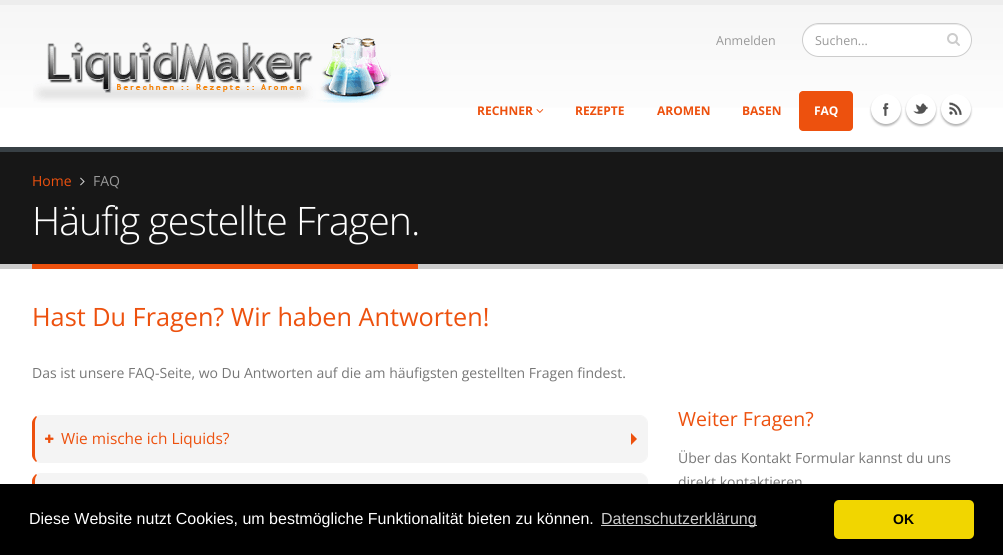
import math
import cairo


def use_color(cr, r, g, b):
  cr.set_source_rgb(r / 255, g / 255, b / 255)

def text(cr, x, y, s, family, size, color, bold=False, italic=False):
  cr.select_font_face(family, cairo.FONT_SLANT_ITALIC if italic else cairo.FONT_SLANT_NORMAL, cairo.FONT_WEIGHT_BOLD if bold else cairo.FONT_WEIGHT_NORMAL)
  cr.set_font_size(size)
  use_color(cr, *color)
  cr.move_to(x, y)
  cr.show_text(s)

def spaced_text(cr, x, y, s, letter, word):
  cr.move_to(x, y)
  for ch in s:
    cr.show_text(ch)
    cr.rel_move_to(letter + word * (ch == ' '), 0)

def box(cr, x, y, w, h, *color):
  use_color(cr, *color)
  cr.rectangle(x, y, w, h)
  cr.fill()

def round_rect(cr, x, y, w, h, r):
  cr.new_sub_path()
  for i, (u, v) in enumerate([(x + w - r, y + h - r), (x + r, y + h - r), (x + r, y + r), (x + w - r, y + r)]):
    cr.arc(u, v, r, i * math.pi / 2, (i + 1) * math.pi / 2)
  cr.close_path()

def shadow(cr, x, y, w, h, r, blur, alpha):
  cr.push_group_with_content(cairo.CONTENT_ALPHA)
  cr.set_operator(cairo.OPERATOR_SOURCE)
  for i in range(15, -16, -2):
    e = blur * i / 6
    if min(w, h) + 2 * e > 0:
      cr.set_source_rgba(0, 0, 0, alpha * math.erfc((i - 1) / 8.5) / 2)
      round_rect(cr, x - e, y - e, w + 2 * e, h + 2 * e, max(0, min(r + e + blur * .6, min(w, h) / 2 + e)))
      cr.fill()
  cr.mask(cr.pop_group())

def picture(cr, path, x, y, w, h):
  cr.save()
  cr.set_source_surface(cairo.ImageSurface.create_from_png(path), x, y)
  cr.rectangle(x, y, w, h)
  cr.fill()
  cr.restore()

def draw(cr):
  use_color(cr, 255, 255, 255)
  cr.paint()
  gradient = cairo.LinearGradient(502, 5, 502, 147)
  gradient.add_color_stop_rgba(0, 0.965, 0.965, 0.965, 1)
  gradient.add_color_stop_rgba(1, 1, 1, 1, 1)
  cr.set_source(gradient)
  cr.rectangle(0, 5, 1003, 103)
  cr.fill()
  box(cr, 0, 0, 1003, 5, 237, 237, 237)
  picture(cr, "img_01.png", 33, 36, 358, 67)
  use_color(cr, 255, 255, 255)
  round_rect(cr, 802, 23, 170, 34, 17)
  cr.fill()
  use_color(cr, 236, 236, 236)
  cr.new_path()
  cr.move_to(819, 25)
  cr.line_to(955, 25)
  cr.curve_to(964, 25, 971, 32, 971, 40)
  cr.curve_to(971, 31, 964, 24, 955, 24)
  cr.line_to(819, 24)
  cr.curve_to(810, 24, 803, 31, 803, 40)
  cr.curve_to(803, 32, 810, 25, 819, 25)
  cr.close_path()
  cr.fill()
  round_rect(cr, 802.5, 23.5, 169, 33, 16.5)
  use_color(cr, 204, 204, 204)
  cr.set_line_width(1)
  cr.stroke()
  picture(cr, "img_02.png", 947, 33, 13, 13)
  picture(cr, "img_03.png", 536, 109, 8, 4)
  use_color(cr, 237, 81, 14)
  round_rect(cr, 799, 91, 54, 40, 4)
  cr.fill()
  use_color(cr, 0, 0, 0)
  shadow(cr, 871, 96, 30, 30, 15, 1, 0.3)
  use_color(cr, 255, 255, 255)
  cr.arc(886, 109, 15, 0, 2 * math.pi)
  cr.fill()
  picture(cr, "img_04.png", 883, 103, 6, 13)
  use_color(cr, 0, 0, 0)
  shadow(cr, 906, 96, 30, 30, 15, 1, 0.3)
  use_color(cr, 255, 255, 255)
  cr.arc(921, 109, 15, 0, 2 * math.pi)
  cr.fill()
  picture(cr, "img_05.png", 913, 103, 15, 11)
  use_color(cr, 0, 0, 0)
  shadow(cr, 941, 96, 30, 30, 15, 1, 0.3)
  use_color(cr, 255, 255, 255)
  cr.arc(956, 109, 15, 0, 2 * math.pi)
  cr.fill()
  picture(cr, "img_06.png", 949, 102, 13, 13)
  box(cr, 0, 152, 1003, 112, 23, 23, 23)
  box(cr, 0, 147, 1003, 5, 56, 64, 69)
  box(cr, 0, 264, 1003, 5, 204, 204, 204)
  picture(cr, "img_07.png", 80, 177, 5, 9)
  box(cr, 32, 264, 386, 5, 237, 81, 14)
  use_color(cr, 244, 244, 244)
  cr.new_path()
  cr.move_to(40, 416)
  cr.line_to(640, 416)
  cr.curve_to(644, 416, 647, 419, 647, 423)
  cr.line_to(647, 455)
  cr.curve_to(647, 459, 644, 462, 640, 462)
  cr.line_to(40, 462)
  cr.curve_to(37, 462, 35, 459, 35, 455)
  cr.line_to(35, 423)
  cr.curve_to(35, 419, 37, 416, 40, 416)
  cr.close_path()
  cr.fill()
  cr.new_path()
  cr.move_to(40, 415)
  cr.line_to(36, 416)
  cr.line_to(37, 417)
  cr.line_to(40, 416)
  cr.line_to(640, 416)
  cr.curve_to(642, 416, 644, 417, 645, 418)
  cr.line_to(646, 418)
  cr.curve_to(644, 416, 642, 415, 640, 415)
  cr.close_path()
  cr.fill()
  cr.new_path()
  cr.move_to(648, 455)
  cr.line_to(648, 423)
  cr.curve_to(648, 421, 647, 419, 646, 418)
  cr.line_to(645, 418)
  cr.curve_to(646, 419, 647, 421, 647, 423)
  cr.line_to(647, 455)
  cr.curve_to(647, 457, 646, 459, 645, 460)
  cr.line_to(646, 460)
  cr.curve_to(647, 459, 648, 457, 648, 455)
  cr.close_path()
  cr.fill()
  cr.new_path()
  cr.move_to(40, 463)
  cr.line_to(640, 463)
  cr.curve_to(642, 463, 644, 462, 646, 460)
  cr.line_to(645, 460)
  cr.curve_to(644, 461, 642, 462, 640, 462)
  cr.line_to(40, 462)
  cr.line_to(37, 461)
  cr.line_to(36, 462)
  cr.close_path()
  cr.fill()
  use_color(cr, 237, 81, 14)
  cr.new_path()
  cr.move_to(32, 423)
  cr.line_to(32, 455)
  cr.curve_to(32, 458, 34, 460, 36, 462)
  cr.line_to(37, 461)
  cr.curve_to(36, 460, 35, 458, 35, 455)
  cr.line_to(35, 423)
  cr.curve_to(35, 420, 36, 418, 37, 417)
  cr.line_to(36, 416)
  cr.curve_to(34, 418, 32, 420, 32, 423)
  cr.close_path()
  cr.fill()
  picture(cr, "img_08.png", 45, 434, 9, 9)
  cr.new_path()
  cr.move_to(631, 445)
  cr.line_to(631, 433)
  cr.line_to(637, 439)
  cr.close_path()
  cr.fill()
  use_color(cr, 244, 244, 244)
  cr.new_path()
  cr.move_to(40, 474)
  cr.line_to(640, 474)
  cr.curve_to(644, 474, 647, 477, 647, 481)
  cr.line_to(647, 513)
  cr.curve_to(647, 517, 644, 520, 640, 520)
  cr.line_to(40, 520)
  cr.curve_to(37, 520, 35, 517, 35, 513)
  cr.line_to(35, 481)
  cr.curve_to(35, 477, 37, 474, 40, 474)
  cr.close_path()
  cr.fill()
  cr.new_path()
  cr.move_to(40, 473)
  cr.line_to(36, 474)
  cr.line_to(37, 475)
  cr.line_to(40, 474)
  cr.line_to(640, 474)
  cr.curve_to(642, 474, 644, 475, 645, 476)
  cr.line_to(646, 476)
  cr.curve_to(644, 474, 642, 473, 640, 473)
  cr.close_path()
  cr.fill()
  cr.new_path()
  cr.move_to(648, 513)
  cr.line_to(648, 481)
  cr.curve_to(648, 479, 647, 477, 646, 476)
  cr.line_to(645, 476)
  cr.curve_to(646, 477, 647, 479, 647, 481)
  cr.line_to(647, 513)
  cr.curve_to(647, 515, 646, 517, 645, 518)
  cr.line_to(646, 518)
  cr.curve_to(647, 517, 648, 515, 648, 513)
  cr.close_path()
  cr.fill()
  use_color(cr, 237, 81, 14)
  cr.new_path()
  cr.move_to(32, 481)
  cr.line_to(32, 513)
  cr.curve_to(32, 516, 34, 518, 36, 520)
  cr.line_to(37, 519)
  cr.curve_to(36, 518, 35, 516, 35, 513)
  cr.line_to(35, 481)
  cr.curve_to(35, 478, 36, 476, 37, 475)
  cr.line_to(36, 474)
  cr.curve_to(34, 476, 32, 478, 32, 481)
  cr.close_path()
  cr.fill()
  text(cr, 716, 45, "Anmelden", "Open Sans", 12.5, (153, 153, 153))
  text(cr, 815, 45, "Suchen...", "Open Sans", 12.5, (153, 153, 153))
  text(cr, 477, 115, "RECHNER", "Open Sans", 12, (237, 81, 14), bold=True)
  text(cr, 575, 115, "REZEPTE", "Open Sans", 12, (237, 81, 14), bold=True)
  text(cr, 657, 115, "AROMEN", "Open Sans", 12, (237, 81, 14), bold=True)
  text(cr, 742, 115, "BASEN", "Open Sans", 12, (237, 81, 14), bold=True)
  text(cr, 814, 115, "FAQ", "Open Sans", 12, (255, 255, 255), bold=True)
  text(cr, 32, 186, "Home", "Open Sans", 14, (237, 81, 14))
  text(cr, 93, 186, "FAQ", "Open Sans", 14, (153, 153, 153))
  cr.select_font_face("Open Sans Light")
  cr.set_font_size(39.25)
  use_color(cr, 255, 255, 255)
  spaced_text(cr, 32, 235, "Häufig gestellte Fragen.", -1, 0)
  text(cr, 32, 326, "Hast Du Fragen? Wir haben Antworten!", "Open Sans", 25.25, (237, 81, 14))
  text(cr, 32, 378, "Das ist unsere FAQ-Seite, wo Du Antworten auf die am häufigsten gestellten Fragen findest.", "Open Sans", 14, (119, 119, 119))
  text(cr, 61, 444, "Wie mische ich Liquids?", "Open Sans", 15.4, (237, 81, 14))
  text(cr, 678, 426, "Weiter Fragen?", "Open Sans", 19.5, (237, 81, 14))
  text(cr, 678, 463, "Über das Kontakt Formular kannst du uns", "Open Sans", 14, (119, 119, 119))
  text(cr, 678, 487, "direkt kontaktieren", "Open Sans", 14, (119, 119, 119))
  box(cr, 0, 484, 1003, 71, 0, 0, 0)
  text(cr, 29, 524, "Diese Website nutzt Cookies, um bestmögliche Funktionalität bieten zu können.", "Liberation Sans", 16, (255, 255, 255))
  box(cr, 601, 525, 156, 1, 204, 204, 204)
  text(cr, 601, 524, "Datenschutzerklärung", "Liberation Sans", 16, (204, 204, 204))
  use_color(cr, 241, 214, 0)
  round_rect(cr, 834, 500, 140, 39, 5)
  cr.fill()
  text(cr, 893, 524, "OK", "Liberation Sans", 14, (0, 0, 0), bold=True)


surface = cairo.ImageSurface(cairo.FORMAT_RGB24, 1003, 555)
cr = cairo.Context(surface)
options = cairo.FontOptions()
options.set_hint_metrics(cairo.HINT_METRICS_OFF)
options.set_hint_style(cairo.HINT_STYLE_NONE)
cr.set_font_options(options)
cr.set_miter_limit(4)
draw(cr)
surface.write_to_png("out.png")
